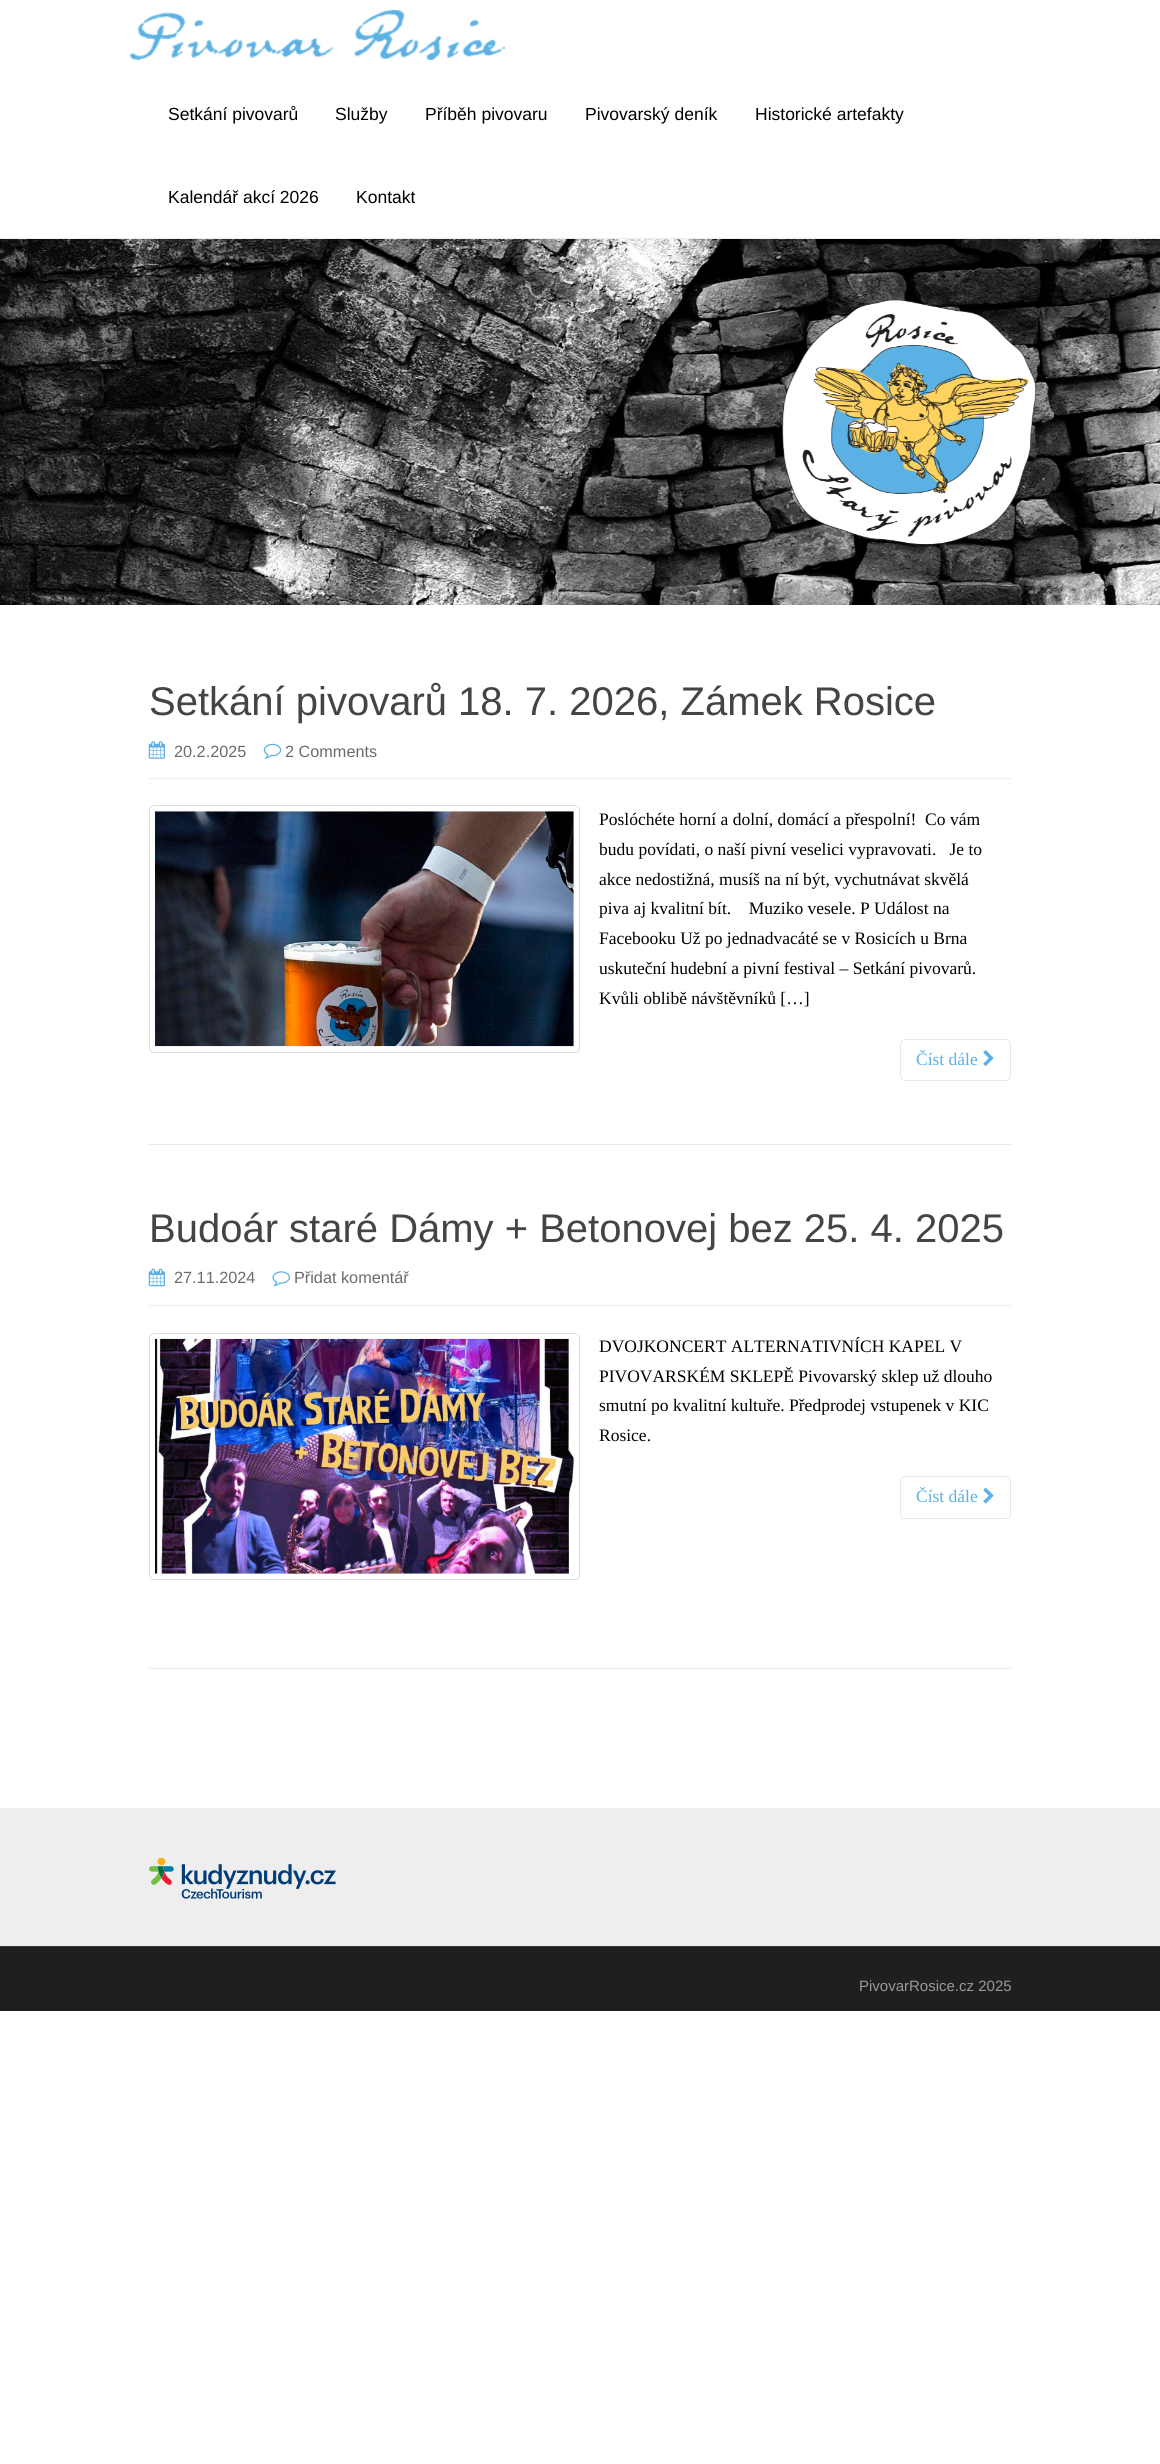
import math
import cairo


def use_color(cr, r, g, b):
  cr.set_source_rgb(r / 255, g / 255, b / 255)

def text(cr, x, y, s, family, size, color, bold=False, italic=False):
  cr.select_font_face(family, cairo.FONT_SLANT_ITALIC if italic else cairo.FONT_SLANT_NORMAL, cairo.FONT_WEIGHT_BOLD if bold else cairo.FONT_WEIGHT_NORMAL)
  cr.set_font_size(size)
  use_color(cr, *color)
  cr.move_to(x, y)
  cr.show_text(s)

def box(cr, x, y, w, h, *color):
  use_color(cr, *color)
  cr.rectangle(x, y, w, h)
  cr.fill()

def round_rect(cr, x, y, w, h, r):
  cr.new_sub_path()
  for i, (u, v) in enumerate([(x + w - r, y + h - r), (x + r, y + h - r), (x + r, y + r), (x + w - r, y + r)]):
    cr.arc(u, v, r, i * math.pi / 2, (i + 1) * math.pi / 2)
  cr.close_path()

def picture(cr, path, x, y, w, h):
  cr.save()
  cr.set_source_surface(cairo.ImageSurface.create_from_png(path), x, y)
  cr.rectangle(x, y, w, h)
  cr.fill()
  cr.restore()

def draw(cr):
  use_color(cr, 255, 255, 255)
  cr.paint()
  box(cr, 0, 238, 1160, 1, 238, 238, 238)
  picture(cr, "img_01.png", 130, 9, 375, 52)
  picture(cr, "img_02.png", 0, 239, 1160, 366)
  box(cr, 149, 778, 862, 1, 238, 238, 238)
  picture(cr, "img_03.png", 148, 741, 17, 18)
  picture(cr, "img_04.png", 263, 743, 19, 16)
  round_rect(cr, 149.5, 805.5, 430, 247, 4.5)
  use_color(cr, 221, 221, 221)
  cr.set_line_width(1)
  cr.stroke()
  picture(cr, "img_05.png", 155, 811, 419, 236)
  round_rect(cr, 900.5, 1039.5, 110, 41, 4.5)
  use_color(cr, 232, 232, 232)
  cr.stroke()
  picture(cr, "img_06.png", 983, 1050, 11, 16)
  box(cr, 149, 1144, 862, 1, 232, 232, 232)
  box(cr, 149, 1305, 862, 1, 238, 238, 238)
  picture(cr, "img_07.png", 148, 1268, 17, 19)
  picture(cr, "img_08.png", 272, 1271, 18, 16)
  round_rect(cr, 149.5, 1333.5, 430, 246, 4.5)
  use_color(cr, 221, 221, 221)
  cr.stroke()
  picture(cr, "img_09.png", 155, 1338, 419, 236)
  round_rect(cr, 900.5, 1476.5, 110, 42, 4.5)
  use_color(cr, 232, 232, 232)
  cr.stroke()
  picture(cr, "img_10.png", 983, 1487, 11, 17)
  box(cr, 149, 1668, 862, 1, 232, 232, 232)
  box(cr, 0, 1808, 1160, 138, 238, 238, 238)
  picture(cr, "img_11.png", 149, 1858, 187, 41)
  box(cr, 0, 1947, 1160, 64, 31, 31, 31)
  box(cr, 0, 1946, 1160, 1, 58, 58, 58)
  text(cr, 168, 120, "Setkání pivovarů", "Liberation Sans", 17.5, (0, 0, 0))
  text(cr, 335, 120, "Služby", "Liberation Sans", 17.5, (0, 0, 0))
  text(cr, 425, 120, "Příběh pivovaru", "Liberation Sans", 17.5, (0, 0, 0))
  text(cr, 585, 120, "Pivovarský deník", "Liberation Sans", 17.5, (0, 0, 0))
  text(cr, 755, 120, "Historické artefakty", "Liberation Sans", 17.5, (0, 0, 0))
  text(cr, 168, 203, "Kalendář akcí 2026", "Liberation Sans", 17.5, (0, 0, 0))
  text(cr, 356, 203, "Kontakt", "Liberation Sans", 17.5, (0, 0, 0))
  text(cr, 149, 715, "Setkání pivovarů 18. 7. 2026, Zámek Rosice", "Liberation Sans", 40, (68, 68, 68))
  text(cr, 174, 757, "20.2.2025", "Liberation Sans", 16.25, (107, 107, 107))
  text(cr, 285, 757, "2 Comments", "Liberation Sans", 16.25, (107, 107, 107))
  text(cr, 599, 825, "Poslóchéte horní a dolní, domácí a přespolní!  Co vám", "Liberation Serif", 17.5, (0, 0, 0))
  text(cr, 599, 855, "budu povídati, o naší pivní veselici vypravovati.   Je to", "Liberation Serif", 17.5, (0, 0, 0))
  text(cr, 599, 885, "akce nedostižná, musíš na ní být, vychutnávat skvělá", "Liberation Serif", 17.5, (0, 0, 0))
  text(cr, 599, 914, "piva aj kvalitní bít.    Muziko vesele. P Událost na", "Liberation Serif", 17.5, (0, 0, 0))
  text(cr, 599, 944, "Facebooku Už po jednadvacáté se v Rosicích u Brna", "Liberation Serif", 17.5, (0, 0, 0))
  text(cr, 599, 974, "uskuteční hudební a pivní festival – Setkání pivovarů.", "Liberation Serif", 17.5, (0, 0, 0))
  text(cr, 599, 1004, "Kvůli oblibě návštěvníků […]", "Liberation Serif", 17.5, (0, 0, 0))
  text(cr, 916, 1065, "Číst dále", "Liberation Serif", 17.5, (91, 177, 227))
  text(cr, 149, 1242, "Budoár staré Dámy + Betonovej bez 25. 4. 2025", "Liberation Sans", 40, (68, 68, 68))
  text(cr, 174, 1283, "27.11.2024", "Liberation Sans", 16.25, (107, 107, 107))
  text(cr, 294, 1283, "Přidat komentář", "Liberation Sans", 16.25, (107, 107, 107))
  text(cr, 599, 1352, "DVOJKONCERT ALTERNATIVNÍCH KAPEL V", "Liberation Serif", 17.5, (0, 0, 0))
  text(cr, 599, 1382, "PIVOVARSKÉM SKLEPĚ Pivovarský sklep už dlouho", "Liberation Serif", 17.5, (0, 0, 0))
  text(cr, 599, 1411, "smutní po kvalitní kultuře. Předprodej vstupenek v KIC", "Liberation Serif", 17.5, (0, 0, 0))
  text(cr, 599, 1441, "Rosice.", "Liberation Serif", 17.5, (0, 0, 0))
  text(cr, 916, 1502, "Číst dále", "Liberation Serif", 17.5, (91, 177, 227))
  text(cr, 859, 1991, "PivovarRosice.cz 2025", "Liberation Sans", 15, (153, 153, 153))


surface = cairo.ImageSurface(cairo.FORMAT_RGB24, 1160, 2464)
cr = cairo.Context(surface)
options = cairo.FontOptions()
options.set_hint_metrics(cairo.HINT_METRICS_OFF)
options.set_hint_style(cairo.HINT_STYLE_NONE)
cr.set_font_options(options)
cr.set_miter_limit(4)
draw(cr)
surface.write_to_png("out.png")
